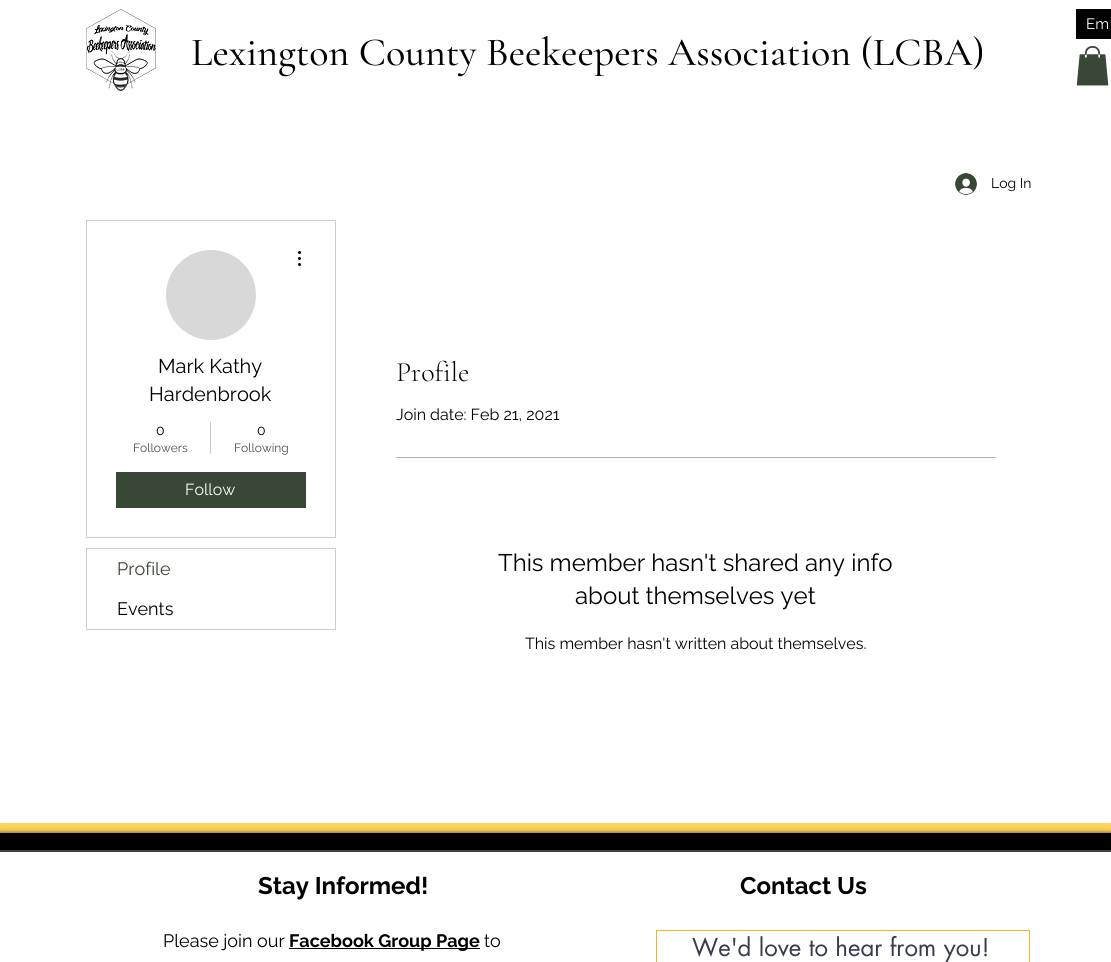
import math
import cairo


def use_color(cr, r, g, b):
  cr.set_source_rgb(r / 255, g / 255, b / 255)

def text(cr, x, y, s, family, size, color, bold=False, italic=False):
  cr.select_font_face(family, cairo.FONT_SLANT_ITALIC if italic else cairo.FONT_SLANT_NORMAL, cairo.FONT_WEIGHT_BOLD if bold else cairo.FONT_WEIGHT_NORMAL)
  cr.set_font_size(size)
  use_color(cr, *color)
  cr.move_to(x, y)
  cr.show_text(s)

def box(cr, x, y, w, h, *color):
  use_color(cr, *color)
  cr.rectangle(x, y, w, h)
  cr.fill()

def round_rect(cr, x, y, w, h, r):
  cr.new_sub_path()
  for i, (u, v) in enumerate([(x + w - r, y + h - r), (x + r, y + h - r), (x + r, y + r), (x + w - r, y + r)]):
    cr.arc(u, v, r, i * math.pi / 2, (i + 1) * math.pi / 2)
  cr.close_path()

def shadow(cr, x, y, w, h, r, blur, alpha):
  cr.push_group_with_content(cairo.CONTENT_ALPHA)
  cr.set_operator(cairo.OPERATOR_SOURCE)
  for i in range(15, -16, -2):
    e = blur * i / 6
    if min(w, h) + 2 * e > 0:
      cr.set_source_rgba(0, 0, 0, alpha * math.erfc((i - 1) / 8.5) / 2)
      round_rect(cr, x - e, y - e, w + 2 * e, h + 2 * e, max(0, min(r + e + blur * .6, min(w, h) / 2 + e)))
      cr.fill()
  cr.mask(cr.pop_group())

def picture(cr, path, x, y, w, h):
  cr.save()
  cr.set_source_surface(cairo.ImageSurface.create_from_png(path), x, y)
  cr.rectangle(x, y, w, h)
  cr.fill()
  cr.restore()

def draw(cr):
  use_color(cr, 255, 212, 90)
  cr.paint()
  box(cr, 0, 0, 1111, 823, 255, 255, 255)
  picture(cr, "img_01.png", 86, 9, 70, 83)
  box(cr, 1076, 9, 35, 30, 0, 0, 0)
  picture(cr, "img_02.png", 1076, 46, 33, 40)
  picture(cr, "img_03.png", 955, 173, 22, 22)
  cr.rectangle(86.5, 220.5, 249, 317)
  use_color(cr, 204, 204, 204)
  cr.set_line_width(1)
  cr.stroke()
  use_color(cr, 216, 216, 216)
  cr.arc(211, 295, 45, 0, 2 * math.pi)
  cr.fill()
  picture(cr, "img_04.png", 298, 251, 3, 15)
  box(cr, 210, 422, 1, 32, 204, 204, 204)
  box(cr, 116, 472, 190, 36, 57, 71, 55)
  cr.rectangle(86.5, 548.5, 249, 81)
  use_color(cr, 204, 204, 204)
  cr.stroke()
  box(cr, 396, 457, 600, 1, 179, 179, 179)
  use_color(cr, 0, 0, 0)
  shadow(cr, 0, 833, 1111, 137, 0, 2.5, 0.7)
  box(cr, 0, 852, 1111, 110, 255, 255, 255)
  box(cr, 0, 850, 1111, 2, 64, 64, 64)
  box(cr, 0, 833, 1111, 17, 0, 0, 0)
  box(cr, 289, 948, 191, 1, 0, 0, 0)
  cr.rectangle(656.5, 930.5, 373, 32)
  use_color(cr, 246, 176, 35)
  cr.stroke()
  text(cr, 1086, 29, "Em", "Raleway", 15, (255, 255, 255))
  text(cr, 191, 65, "Lexington County Beekeepers Association (LCBA)", "Cormorant Garamond Medium", 40, (0, 0, 0))
  text(cr, 991, 188, "Log In", "Raleway", 14, (0, 0, 0))
  text(cr, 158, 373, "Mark Kathy", "Raleway", 20, (0, 0, 0))
  text(cr, 149, 401, "Hardenbrook", "Raleway", 20, (0, 0, 0))
  text(cr, 156, 435, "0", "Raleway", 14, (0, 0, 0))
  text(cr, 133, 452, "Followers", "Raleway", 12, (77, 77, 77))
  text(cr, 257, 435, "0", "Raleway", 14, (0, 0, 0))
  text(cr, 234, 452, "Following", "Raleway", 12, (77, 77, 77))
  text(cr, 185, 495, "Follow", "Raleway", 16, (255, 255, 255))
  text(cr, 117, 575, "Profile", "Raleway", 18, (57, 71, 55))
  text(cr, 117, 615, "Events", "Raleway", 18, (0, 0, 0))
  text(cr, 396, 381, "Profile", "Cormorant Garamond Light", 28, (0, 0, 0))
  text(cr, 396, 420, "Join date: Feb 21, 2021", "Raleway", 16, (0, 0, 0))
  text(cr, 498, 571, "This member hasn't shared any info", "Raleway", 24, (0, 0, 0))
  text(cr, 575, 604, "about themselves yet", "Raleway", 24, (0, 0, 0))
  text(cr, 525, 649, "This member hasn't written about themselves.", "Raleway", 16, (0, 0, 0))
  text(cr, 258, 894, "Stay Informed!", "Raleway", 24, (0, 0, 0), bold=True)
  text(cr, 740, 894, "Contact Us", "Raleway", 24, (0, 0, 0), bold=True)
  text(cr, 163, 947, "Please join our", "Raleway", 18, (0, 0, 0))
  text(cr, 289, 947, "Facebook Group Page", "Raleway", 18, (0, 0, 0), bold=True)
  text(cr, 484, 947, "to", "Raleway", 18, (0, 0, 0))
  text(cr, 692, 956, "We'd love to hear from you!", "futura", 24, (55, 59, 77))


surface = cairo.ImageSurface(cairo.FORMAT_RGB24, 1111, 962)
cr = cairo.Context(surface)
options = cairo.FontOptions()
options.set_hint_metrics(cairo.HINT_METRICS_OFF)
options.set_hint_style(cairo.HINT_STYLE_NONE)
cr.set_font_options(options)
cr.set_miter_limit(4)
draw(cr)
surface.write_to_png("out.png")
